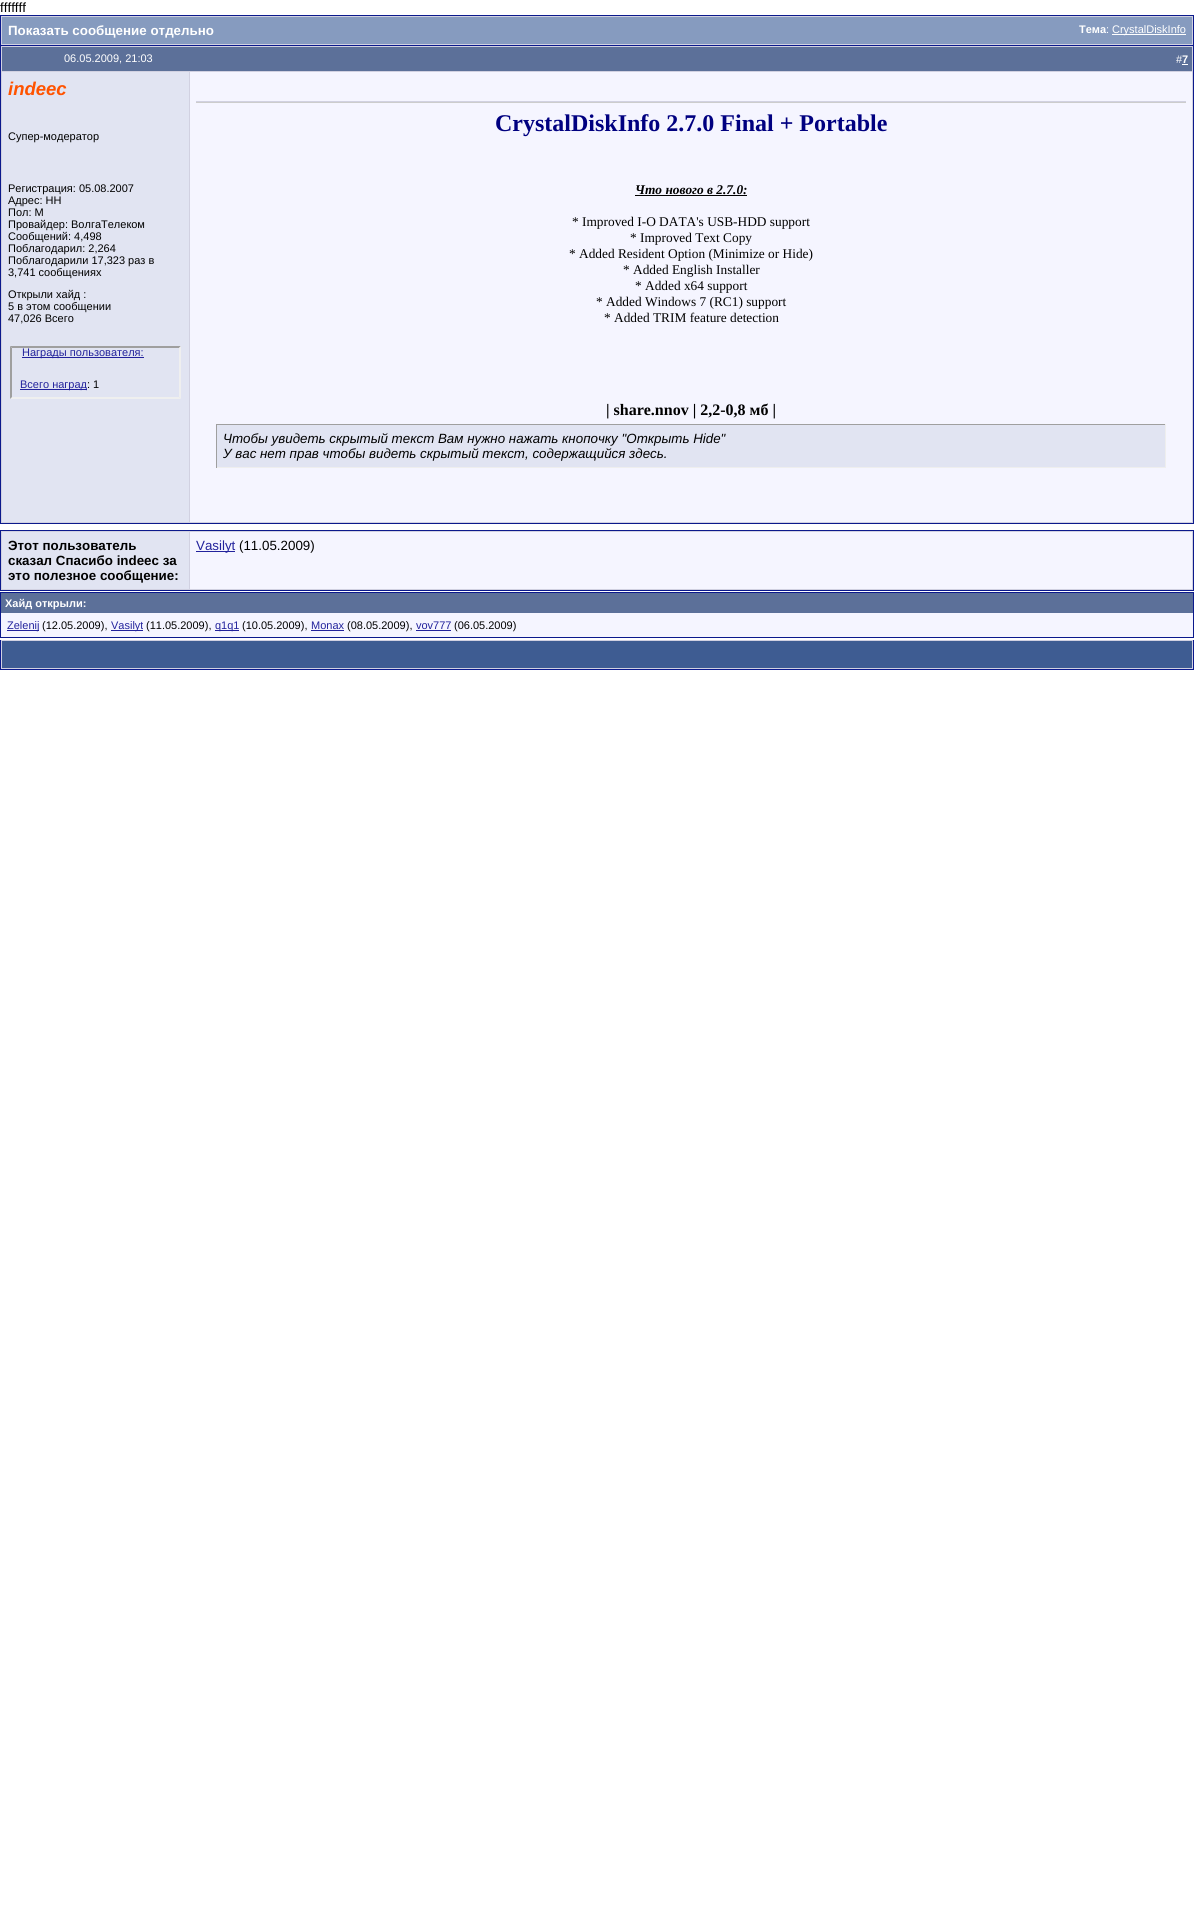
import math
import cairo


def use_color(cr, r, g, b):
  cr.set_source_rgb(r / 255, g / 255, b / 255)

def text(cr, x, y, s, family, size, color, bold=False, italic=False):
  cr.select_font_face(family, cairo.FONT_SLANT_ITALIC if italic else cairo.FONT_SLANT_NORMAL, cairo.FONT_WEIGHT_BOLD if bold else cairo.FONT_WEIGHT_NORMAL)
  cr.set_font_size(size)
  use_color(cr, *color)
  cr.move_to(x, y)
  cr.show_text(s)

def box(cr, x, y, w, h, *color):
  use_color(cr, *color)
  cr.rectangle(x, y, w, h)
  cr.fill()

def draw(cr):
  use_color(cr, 255, 255, 255)
  cr.paint()
  box(cr, 1, 16, 1192, 29, 209, 209, 225)
  box(cr, 0, 15, 1194, 1, 11, 25, 140)
  box(cr, 1193, 15, 1, 30, 11, 25, 140)
  box(cr, 0, 15, 1, 30, 11, 25, 140)
  box(cr, 2, 17, 1190, 27, 134, 155, 191)
  box(cr, 1112, 34, 74, 1, 255, 255, 255)
  cr.rectangle(0.5, 45.5, 1193, 478)
  use_color(cr, 11, 25, 140)
  cr.set_line_width(1)
  cr.stroke()
  box(cr, 2, 47, 1190, 24, 92, 112, 153)
  box(cr, 1, 46, 1192, 1, 209, 209, 225)
  box(cr, 1, 71, 189, 1, 209, 209, 225)
  box(cr, 1, 46, 1, 448, 209, 209, 225)
  box(cr, 1192, 46, 1, 477, 209, 209, 225)
  box(cr, 190, 71, 1003, 1, 209, 209, 225)
  box(cr, 1182, 64, 6, 1, 255, 255, 255)
  box(cr, 2, 72, 187, 450, 225, 228, 242)
  box(cr, 189, 72, 1, 451, 209, 209, 225)
  use_color(cr, 159, 159, 159)
  cr.new_path()
  cr.move_to(10, 346)
  cr.line_to(181, 346)
  cr.line_to(179, 348)
  cr.line_to(12, 348)
  cr.close_path()
  cr.fill()
  use_color(cr, 239, 239, 239)
  cr.new_path()
  cr.move_to(181, 346)
  cr.line_to(181, 399)
  cr.line_to(179, 397)
  cr.line_to(179, 348)
  cr.close_path()
  cr.fill()
  cr.new_path()
  cr.move_to(181, 399)
  cr.line_to(10, 399)
  cr.line_to(12, 397)
  cr.line_to(179, 397)
  cr.close_path()
  cr.fill()
  use_color(cr, 159, 159, 159)
  cr.new_path()
  cr.move_to(10, 399)
  cr.line_to(10, 346)
  cr.line_to(12, 348)
  cr.line_to(12, 397)
  cr.close_path()
  cr.fill()
  box(cr, 22, 357, 122, 1, 34, 34, 156)
  box(cr, 20, 389, 67, 1, 34, 34, 156)
  box(cr, 190, 72, 1002, 450, 245, 245, 255)
  box(cr, 196, 101, 990, 1, 209, 209, 225)
  box(cr, 196, 102, 990, 1, 204, 204, 204)
  box(cr, 635, 195, 112, 1, 0, 0, 0)
  box(cr, 217, 425, 948, 42, 225, 228, 242)
  box(cr, 216, 424, 950, 1, 159, 159, 159)
  box(cr, 1165, 424, 1, 44, 238, 238, 238)
  box(cr, 216, 467, 950, 1, 238, 238, 238)
  box(cr, 216, 424, 1, 44, 159, 159, 159)
  box(cr, 1, 522, 1192, 1, 209, 209, 225)
  box(cr, 1, 494, 1, 29, 209, 209, 225)
  cr.rectangle(0.5, 530.5, 1193, 60)
  cr.fill_preserve()
  use_color(cr, 11, 25, 140)
  cr.stroke()
  box(cr, 2, 532, 187, 57, 225, 228, 242)
  box(cr, 190, 532, 1002, 57, 245, 245, 255)
  box(cr, 196, 551, 39, 1, 34, 34, 156)
  cr.rectangle(0.5, 592.5, 1193, 45)
  use_color(cr, 11, 25, 140)
  cr.stroke()
  box(cr, 1, 593, 1192, 20, 92, 112, 153)
  box(cr, 1, 613, 1192, 24, 245, 245, 255)
  box(cr, 7, 630, 32, 1, 34, 34, 156)
  box(cr, 111, 630, 32, 1, 34, 34, 156)
  box(cr, 215, 630, 24, 1, 34, 34, 156)
  box(cr, 311, 630, 33, 1, 34, 34, 156)
  box(cr, 416, 630, 35, 1, 34, 34, 156)
  box(cr, 1, 640, 1192, 29, 209, 209, 225)
  box(cr, 1193, 640, 1, 30, 11, 25, 140)
  box(cr, 0, 669, 1194, 1, 11, 25, 140)
  box(cr, 0, 640, 1, 30, 11, 25, 140)
  box(cr, 2, 641, 1190, 27, 62, 92, 146)
  text(cr, 0, 12, "fffffff", "Liberation Sans", 13.35, (0, 0, 0))
  text(cr, 8, 35, "Показать сообщение отдельно", "Liberation Sans", 13.35, (255, 255, 255), bold=True)
  text(cr, 1079, 33, "Тема", "Liberation Sans", 11, (255, 255, 255), bold=True)
  text(cr, 1106, 33, ":", "Liberation Sans", 11, (255, 255, 255))
  text(cr, 1112, 33, "CrystalDiskInfo", "Liberation Sans", 11, (255, 255, 255))
  text(cr, 64, 62, "06.05.2009, 21:03", "Liberation Sans", 11, (255, 255, 255))
  text(cr, 1176, 63, "#", "Liberation Sans", 11, (255, 255, 255))
  text(cr, 1182, 63, "7", "Liberation Sans", 11, (255, 255, 255), bold=True)
  text(cr, 8, 95, "indeec", "Liberation Sans", 18.5, (255, 83, 0), bold=True, italic=True)
  text(cr, 8, 140, "Супер-модератор", "Liberation Sans", 11, (0, 0, 0))
  text(cr, 8, 192, "Регистрация: 05.08.2007", "Liberation Sans", 11, (0, 0, 0))
  text(cr, 8, 204, "Адрес: НН", "Liberation Sans", 11, (0, 0, 0))
  text(cr, 8, 216, "Пол: M", "Liberation Sans", 11, (0, 0, 0))
  text(cr, 8, 228, "Провайдер: ВолгаТелеком", "Liberation Sans", 11, (0, 0, 0))
  text(cr, 8, 240, "Сообщений: 4,498", "Liberation Sans", 11, (0, 0, 0))
  text(cr, 8, 252, "Поблагодарил: 2,264", "Liberation Sans", 11, (0, 0, 0))
  text(cr, 8, 264, "Поблагодарили 17,323 раз в", "Liberation Sans", 11, (0, 0, 0))
  text(cr, 8, 276, "3,741 сообщениях", "Liberation Sans", 11, (0, 0, 0))
  text(cr, 8, 298, "Открыли хайд :", "Liberation Sans", 11, (0, 0, 0))
  text(cr, 8, 310, "5 в этом сообщении", "Liberation Sans", 11, (0, 0, 0))
  text(cr, 8, 322, "47,026 Всего", "Liberation Sans", 11, (0, 0, 0))
  text(cr, 22, 356, "Награды пользователя:", "Liberation Sans", 11, (34, 34, 156))
  text(cr, 20, 388, "Всего наград", "Liberation Sans", 11, (34, 34, 156))
  text(cr, 87, 388, ": 1", "Liberation Sans", 11, (0, 0, 0))
  text(cr, 495, 131, "CrystalDiskInfo 2.7.0 Final + Portable", "Liberation Serif", 24, (0, 0, 128), bold=True)
  text(cr, 635, 194, "Что нового в 2.7.0:", "Liberation Serif", 13.35, (0, 0, 0), bold=True, italic=True)
  text(cr, 572, 226, "* Improved I-O DATA's USB-HDD support", "Liberation Serif", 13.35, (0, 0, 0))
  text(cr, 630, 242, "* Improved Text Copy", "Liberation Serif", 13.35, (0, 0, 0))
  text(cr, 569, 258, "* Added Resident Option (Minimize or Hide)", "Liberation Serif", 13.35, (0, 0, 0))
  text(cr, 623, 274, "* Added English Installer", "Liberation Serif", 13.35, (0, 0, 0))
  text(cr, 635, 290, "* Added x64 support", "Liberation Serif", 13.35, (0, 0, 0))
  text(cr, 596, 306, "* Added Windows 7 (RC1) support", "Liberation Serif", 13.35, (0, 0, 0))
  text(cr, 604, 322, "* Added TRIM feature detection", "Liberation Serif", 13.35, (0, 0, 0))
  text(cr, 606, 415, "| share.nnov | 2,2-0,8 мб |", "Liberation Serif", 16, (0, 0, 0), bold=True)
  text(cr, 223, 443, "Чтобы увидеть скрытый текст Вам нужно нажать кнопочку \"Открыть Hide\"", "Liberation Sans", 13.35, (0, 0, 0), italic=True)
  text(cr, 223, 458, "У вас нет прав чтобы видеть скрытый текст, содержащийся здесь.", "Liberation Sans", 13.35, (0, 0, 0), italic=True)
  text(cr, 8, 550, "Этот пользователь", "Liberation Sans", 13.35, (0, 0, 0), bold=True)
  text(cr, 8, 565, "сказал Спасибо indeec за", "Liberation Sans", 13.35, (0, 0, 0), bold=True)
  text(cr, 8, 580, "это полезное сообщение:", "Liberation Sans", 13.35, (0, 0, 0), bold=True)
  text(cr, 196, 550, "Vasilyt", "Liberation Sans", 13.35, (34, 34, 156))
  text(cr, 239, 550, "(11.05.2009)", "Liberation Sans", 13.35, (0, 0, 0))
  text(cr, 5, 607, "Хайд открыли:", "Liberation Sans", 11, (255, 255, 255), bold=True)
  text(cr, 7, 629, "Zelenij", "Liberation Sans", 11, (34, 34, 156))
  text(cr, 42, 629, "(12.05.2009),", "Liberation Sans", 11, (0, 0, 0))
  text(cr, 111, 629, "Vasilyt", "Liberation Sans", 11, (34, 34, 156))
  text(cr, 146, 629, "(11.05.2009),", "Liberation Sans", 11, (0, 0, 0))
  text(cr, 215, 629, "q1q1", "Liberation Sans", 11, (34, 34, 156))
  text(cr, 242, 629, "(10.05.2009),", "Liberation Sans", 11, (0, 0, 0))
  text(cr, 311, 629, "Monax", "Liberation Sans", 11, (34, 34, 156))
  text(cr, 347, 629, "(08.05.2009),", "Liberation Sans", 11, (0, 0, 0))
  text(cr, 416, 629, "vov777", "Liberation Sans", 11, (34, 34, 156))
  text(cr, 454, 629, "(06.05.2009)", "Liberation Sans", 11, (0, 0, 0))


surface = cairo.ImageSurface(cairo.FORMAT_RGB24, 1194, 1905)
cr = cairo.Context(surface)
options = cairo.FontOptions()
options.set_hint_metrics(cairo.HINT_METRICS_OFF)
options.set_hint_style(cairo.HINT_STYLE_NONE)
cr.set_font_options(options)
cr.set_miter_limit(4)
draw(cr)
surface.write_to_png("out.png")
